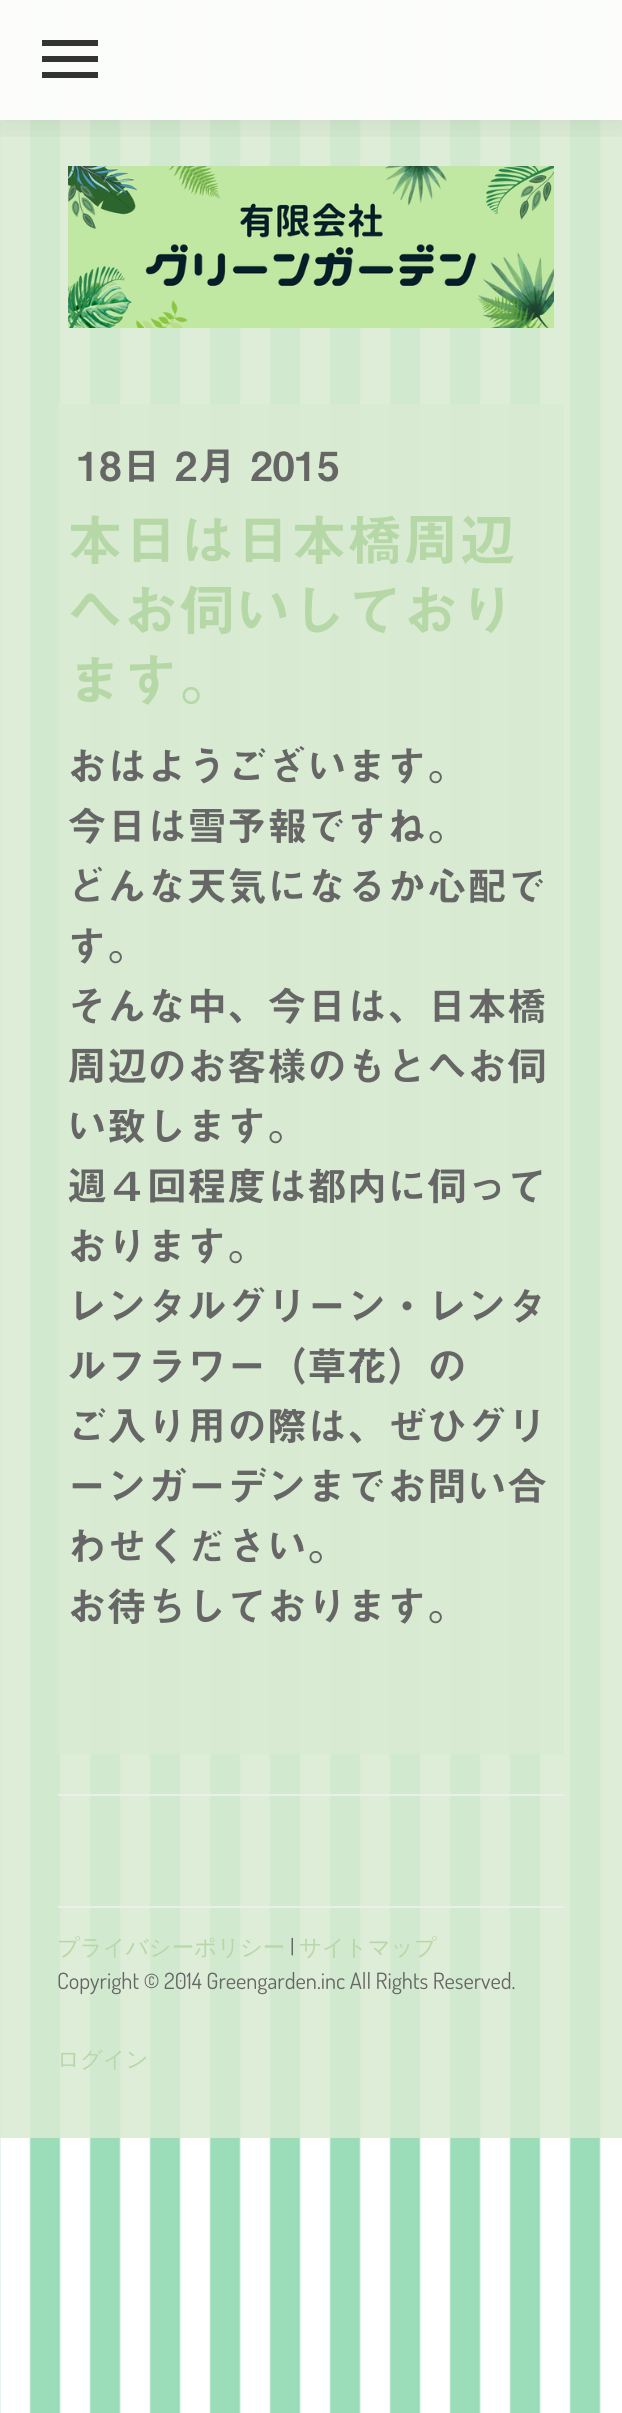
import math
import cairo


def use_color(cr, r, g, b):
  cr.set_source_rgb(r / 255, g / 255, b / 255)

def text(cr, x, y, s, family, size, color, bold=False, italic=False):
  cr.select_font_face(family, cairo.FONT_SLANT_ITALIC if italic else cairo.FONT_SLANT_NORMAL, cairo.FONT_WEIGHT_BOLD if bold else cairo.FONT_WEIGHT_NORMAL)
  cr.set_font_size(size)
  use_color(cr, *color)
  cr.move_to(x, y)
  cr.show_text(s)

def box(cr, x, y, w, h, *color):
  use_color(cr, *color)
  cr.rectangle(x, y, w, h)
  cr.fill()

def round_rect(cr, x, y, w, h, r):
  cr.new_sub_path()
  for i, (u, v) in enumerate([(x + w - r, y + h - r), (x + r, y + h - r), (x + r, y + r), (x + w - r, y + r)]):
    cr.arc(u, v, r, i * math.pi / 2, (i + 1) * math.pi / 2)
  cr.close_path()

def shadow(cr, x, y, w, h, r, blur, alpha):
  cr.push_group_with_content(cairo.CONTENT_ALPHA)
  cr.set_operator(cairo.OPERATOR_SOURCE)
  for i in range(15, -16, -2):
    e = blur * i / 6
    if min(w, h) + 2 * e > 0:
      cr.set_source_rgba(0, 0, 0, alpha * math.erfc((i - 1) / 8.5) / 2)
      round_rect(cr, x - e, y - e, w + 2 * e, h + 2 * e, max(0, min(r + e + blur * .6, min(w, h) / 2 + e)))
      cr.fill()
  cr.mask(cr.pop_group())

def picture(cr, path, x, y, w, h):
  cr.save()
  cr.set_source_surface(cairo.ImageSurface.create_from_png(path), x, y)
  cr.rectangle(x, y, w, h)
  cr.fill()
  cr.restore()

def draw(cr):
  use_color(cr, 156, 221, 185)
  cr.paint()
  picture(cr, "img_01.png", 0, 0, 622, 2413)
  cr.set_source_rgba(0.851, 0.922, 0.824, 0.88)
  cr.rectangle(0, 0, 622, 2138)
  cr.fill()
  picture(cr, "img_02.png", 68, 166, 486, 162)
  cr.save()
  cr.rectangle(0, 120, 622, 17)
  cr.clip()
  use_color(cr, 0, 0, 0)
  shadow(cr, 0, 0, 622, 120, 0, 20, 0.1)
  cr.restore()
  cr.set_source_rgba(1, 1, 1, 0.9)
  cr.rectangle(0, 0, 622, 120)
  cr.fill()
  box(cr, 42, 56, 56, 6, 51, 51, 51)
  box(cr, 42, 40, 56, 6, 51, 51, 51)
  box(cr, 42, 72, 56, 6, 51, 51, 51)
  cr.set_source_rgba(0.851, 0.922, 0.824, 0.88)
  cr.rectangle(58, 404, 506, 1350)
  cr.fill()
  box(cr, 58, 1794, 506, 2, 237, 237, 237)
  box(cr, 58, 1906, 506, 2, 237, 237, 237)
  text(cr, 77, 481, "18日 2月 2015", "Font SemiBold", 40, (102, 102, 102))
  text(cr, 67, 561, "本日は日本橋周辺", "Font SemiBold", 56, (181, 216, 166))
  text(cr, 67, 631, "へお伺いしており", "Font SemiBold", 56, (181, 216, 166))
  text(cr, 67, 701, "ます。", "Font SemiBold", 56, (181, 216, 166))
  text(cr, 67, 781, "おはようございます。", "Font SemiBold", 40, (102, 102, 102))
  text(cr, 67, 841, "今日は雪予報ですね。", "Font SemiBold", 40, (102, 102, 102))
  text(cr, 67, 901, "どんな天気になるか心配で", "Font SemiBold", 40, (102, 102, 102))
  text(cr, 67, 961, "す。", "Font SemiBold", 40, (102, 102, 102))
  text(cr, 67, 1021, "そんな中、今日は、日本橋", "Font SemiBold", 40, (102, 102, 102))
  text(cr, 67, 1081, "周辺のお客様のもとへお伺", "Font SemiBold", 40, (102, 102, 102))
  text(cr, 67, 1141, "い致します。", "Font SemiBold", 40, (102, 102, 102))
  text(cr, 67, 1201, "週４回程度は都内に伺って", "Font SemiBold", 40, (102, 102, 102))
  text(cr, 67, 1261, "おります。", "Font SemiBold", 40, (102, 102, 102))
  text(cr, 67, 1321, "レンタルグリーン・レンタ", "Font SemiBold", 40, (102, 102, 102))
  text(cr, 67, 1381, "ルフラワー（草花）の", "Font SemiBold", 40, (102, 102, 102))
  text(cr, 67, 1441, "ご入り用の際は、ぜひグリ", "Font SemiBold", 40, (102, 102, 102))
  text(cr, 67, 1501, "ーンガーデンまでお問い合", "Font SemiBold", 40, (102, 102, 102))
  text(cr, 67, 1561, "わせください。", "Font SemiBold", 40, (102, 102, 102))
  text(cr, 67, 1621, "お待ちしております。", "Font SemiBold", 40, (102, 102, 102))
  text(cr, 57, 1955, "プライバシーポリシー", "WenQuanYi Zen Hei Medium", 22.4, (181, 216, 166))
  text(cr, 290, 1955, "|", "Dosis", 22.4, (102, 102, 102))
  text(cr, 299, 1955, "サイトマップ", "WenQuanYi Zen Hei Medium", 22.4, (181, 216, 166))
  text(cr, 57, 1989, "Copyright © 2014 Greengarden.inc All Rights Reserved.", "Dosis", 22.4, (102, 102, 102))
  text(cr, 57, 2067, "ログイン", "WenQuanYi Zen Hei Medium", 22.4, (181, 216, 166))


surface = cairo.ImageSurface(cairo.FORMAT_RGB24, 622, 2413)
cr = cairo.Context(surface)
options = cairo.FontOptions()
options.set_hint_metrics(cairo.HINT_METRICS_OFF)
options.set_hint_style(cairo.HINT_STYLE_NONE)
cr.set_font_options(options)
cr.set_miter_limit(4)
draw(cr)
surface.write_to_png("out.png")
